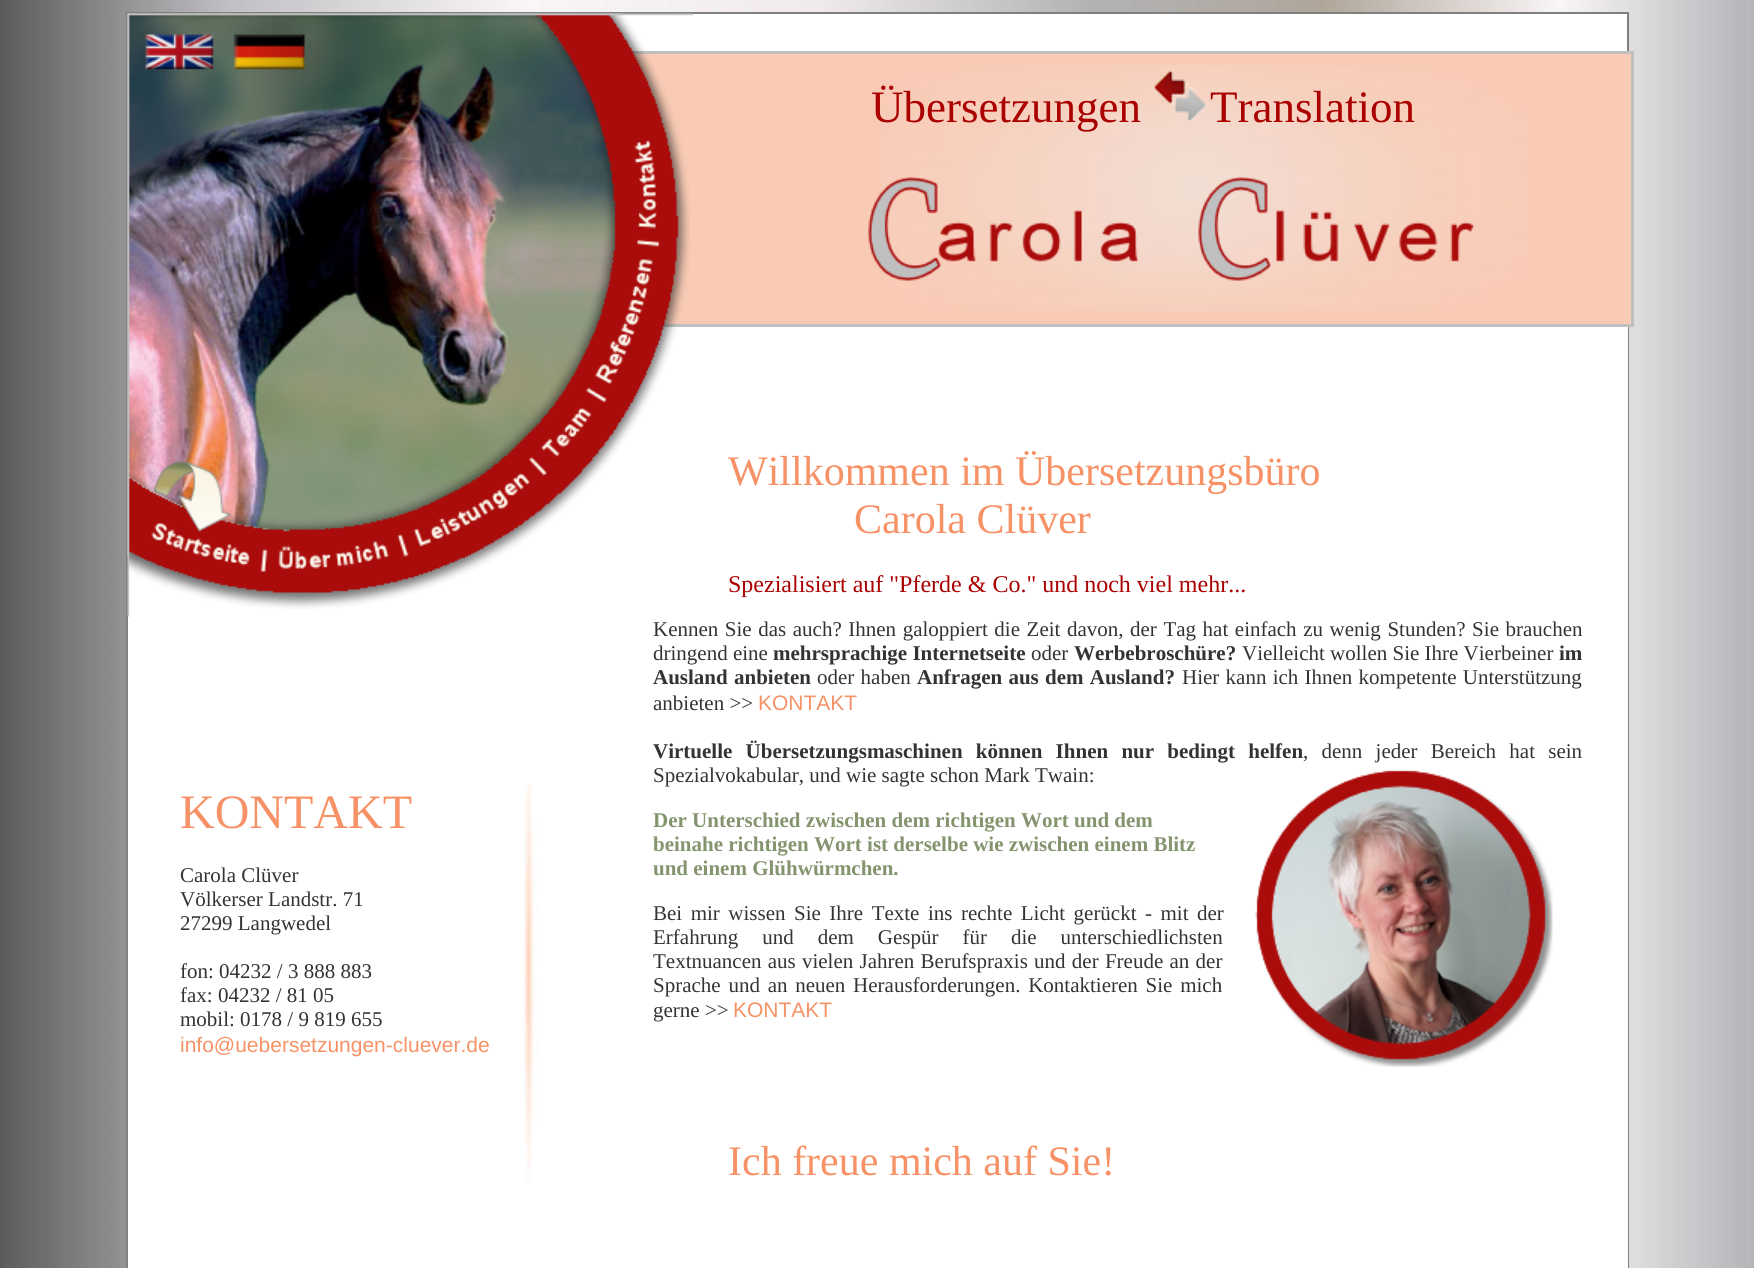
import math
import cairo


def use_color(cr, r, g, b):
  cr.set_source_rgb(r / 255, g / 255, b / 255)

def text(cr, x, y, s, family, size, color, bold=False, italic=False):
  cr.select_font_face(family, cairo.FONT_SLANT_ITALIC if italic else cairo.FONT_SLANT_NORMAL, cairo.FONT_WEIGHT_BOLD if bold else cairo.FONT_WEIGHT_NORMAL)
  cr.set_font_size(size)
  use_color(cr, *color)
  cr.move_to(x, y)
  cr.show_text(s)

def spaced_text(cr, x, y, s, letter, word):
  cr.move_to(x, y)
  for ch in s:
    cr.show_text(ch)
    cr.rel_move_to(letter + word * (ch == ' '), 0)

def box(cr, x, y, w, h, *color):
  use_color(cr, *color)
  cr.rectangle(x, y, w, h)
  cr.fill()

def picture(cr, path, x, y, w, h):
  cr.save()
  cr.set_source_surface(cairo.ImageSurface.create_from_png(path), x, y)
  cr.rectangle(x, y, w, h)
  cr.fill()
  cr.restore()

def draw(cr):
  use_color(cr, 255, 255, 255)
  cr.paint()
  picture(cr, "img_01.png", 0, 0, 1754, 1268)
  box(cr, 539, 14, 1088, 37, 255, 255, 255)
  cr.rectangle(127, 13, 1501, 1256)
  use_color(cr, 128, 128, 128)
  cr.stroke()
  box(cr, 568, 54, 1063, 270, 249, 203, 181)
  picture(cr, "img_04.png", 881, 64, 647, 248)
  cr.rectangle(129.5, 52.5, 1503, 273)
  use_color(cr, 192, 192, 192)
  cr.set_line_width(3)
  cr.stroke()
  box(cr, 128, 327, 1500, 941, 255, 255, 255)
  picture(cr, "img_02.png", 127, 13, 563, 596)
  picture(cr, "img_03.png", 127, 13, 566, 604)
  picture(cr, "img_05.png", 1152, 70, 57, 52)
  picture(cr, "img_06.png", 868, 177, 606, 104)
  picture(cr, "img_07.png", 1255, 770, 298, 297)
  picture(cr, "img_08.png", 521, 784, 17, 400)
  text(cr, 871, 122, "Übersetzungen", "Liberation Serif", 45, (170, 0, 0))
  text(cr, 1210, 122, "Translation", "Liberation Serif", 45, (170, 0, 0))
  text(cr, 728, 485, "Willkommen im Übersetzungsbüro", "Liberation Serif", 42, (246, 146, 102))
  text(cr, 854, 533, "Carola Clüver", "Liberation Serif", 42, (246, 146, 102))
  text(cr, 728, 592, "Spezialisiert auf \"Pferde & Co.\" und noch viel mehr...", "Liberation Serif", 24, (170, 0, 0))
  cr.set_font_size(21)
  use_color(cr, 51, 51, 51)
  spaced_text(cr, 653, 636, "Kennen Sie das auch? Ihnen galoppiert die Zeit davon, der Tag hat einfach zu wenig Stunden? Sie brauchen", 0, 1.3)
  text(cr, 653, 660, "dringend eine", "Liberation Serif", 21, (51, 51, 51))
  text(cr, 773, 660, "mehrsprachige Internetseite", "Liberation Serif", 21, (51, 51, 51), bold=True)
  text(cr, 1031, 660, "oder", "Liberation Serif", 21, (51, 51, 51))
  text(cr, 1074, 660, "Werbebroschüre?", "Liberation Serif", 21, (51, 51, 51), bold=True)
  text(cr, 1242, 660, "Vielleicht wollen Sie Ihre Vierbeiner", "Liberation Serif", 21, (51, 51, 51))
  text(cr, 1559, 660, "im", "Liberation Serif", 21, (51, 51, 51), bold=True)
  spaced_text(cr, 653, 684, "Ausland anbieten", 0, 1)
  cr.select_font_face("Liberation Serif")
  spaced_text(cr, 817, 684, "oder haben", 0, 1)
  cr.select_font_face("Liberation Serif", cairo.FONT_SLANT_NORMAL, cairo.FONT_WEIGHT_BOLD)
  spaced_text(cr, 917, 684, "Anfragen aus dem Ausland?", 0, 1)
  cr.select_font_face("Liberation Serif")
  spaced_text(cr, 1182, 684, "Hier kann ich Ihnen kompetente Unterstützung", 0, 1)
  text(cr, 653, 710, "anbieten >>", "Liberation Serif", 21, (51, 51, 51))
  text(cr, 758, 710, "KONTAKT", "Liberation Sans", 21, (246, 146, 102))
  cr.select_font_face("Liberation Serif", cairo.FONT_SLANT_NORMAL, cairo.FONT_WEIGHT_BOLD)
  use_color(cr, 51, 51, 51)
  spaced_text(cr, 653, 758, "Virtuelle Übersetzungsmaschinen können Ihnen nur bedingt helfen", 0, 8)
  cr.select_font_face("Liberation Serif")
  spaced_text(cr, 1303, 758, ", denn jeder Bereich hat sein", 0, 8)
  text(cr, 653, 782, "Spezialvokabular, und wie sagte schon Mark Twain:", "Liberation Serif", 21, (51, 51, 51))
  text(cr, 180, 828, "KONTAKT", "Liberation Serif", 48, (246, 146, 102))
  text(cr, 180, 882, "Carola Clüver", "Liberation Serif", 21, (51, 51, 51))
  text(cr, 180, 906, "Völkerser Landstr. 71", "Liberation Serif", 21, (51, 51, 51))
  text(cr, 180, 930, "27299 Langwedel", "Liberation Serif", 21, (51, 51, 51))
  text(cr, 180, 978, "fon: 04232 / 3 888 883", "Liberation Serif", 21, (51, 51, 51))
  text(cr, 180, 1002, "fax: 04232 / 81 05", "Liberation Serif", 21, (51, 51, 51))
  text(cr, 180, 1026, "mobil: 0178 / 9 819 655", "Liberation Serif", 21, (51, 51, 51))
  text(cr, 180, 1052, "info@uebersetzungen-cluever.de", "Liberation Sans", 21, (246, 146, 102))
  text(cr, 653, 827, "Der Unterschied zwischen dem richtigen Wort und dem", "Liberation Serif", 21, (131, 148, 110), bold=True)
  text(cr, 653, 851, "beinahe richtigen Wort ist derselbe wie zwischen einem Blitz", "Liberation Serif", 21, (131, 148, 110), bold=True)
  text(cr, 653, 875, "und einem Glühwürmchen.", "Liberation Serif", 21, (131, 148, 110), bold=True)
  cr.select_font_face("Liberation Serif")
  use_color(cr, 51, 51, 51)
  spaced_text(cr, 653, 920, "Bei mir wissen Sie Ihre Texte ins rechte Licht gerückt - mit der", 0, 3.25)
  spaced_text(cr, 653, 944, "Erfahrung und dem Gespür für die unterschiedlichsten", 0, 18.75)
  spaced_text(cr, 653, 968, "Textnuancen aus vielen Jahren Berufspraxis und der Freude an der", 0, 1)
  spaced_text(cr, 653, 992, "Sprache und an neuen Herausforderungen. Kontaktieren Sie mich", 0, 2.5)
  text(cr, 653, 1017, "gerne >>", "Liberation Serif", 21, (51, 51, 51))
  text(cr, 733, 1017, "KONTAKT", "Liberation Sans", 21, (246, 146, 102))
  text(cr, 728, 1175, "Ich freue mich auf Sie!", "Liberation Serif", 42, (246, 146, 102))


surface = cairo.ImageSurface(cairo.FORMAT_RGB24, 1754, 1268)
cr = cairo.Context(surface)
options = cairo.FontOptions()
options.set_hint_metrics(cairo.HINT_METRICS_OFF)
options.set_hint_style(cairo.HINT_STYLE_NONE)
cr.set_font_options(options)
cr.set_miter_limit(4)
draw(cr)
surface.write_to_png("out.png")
